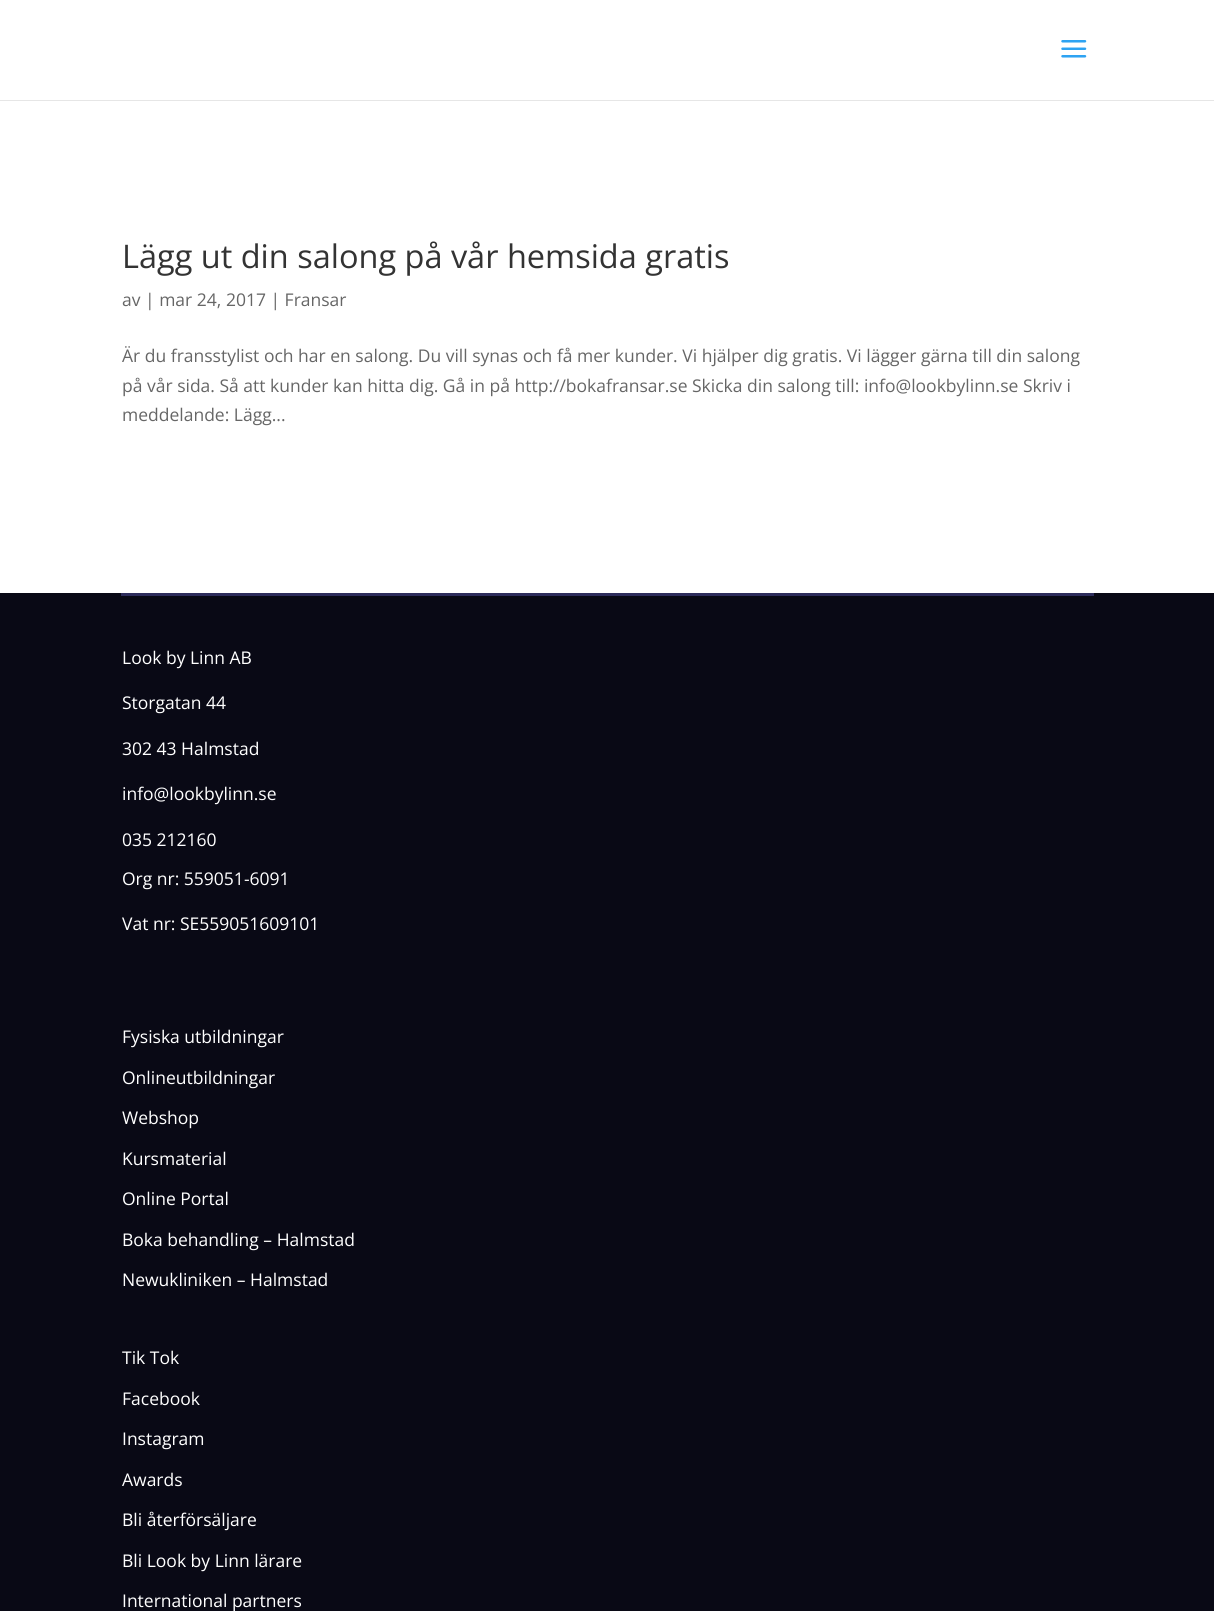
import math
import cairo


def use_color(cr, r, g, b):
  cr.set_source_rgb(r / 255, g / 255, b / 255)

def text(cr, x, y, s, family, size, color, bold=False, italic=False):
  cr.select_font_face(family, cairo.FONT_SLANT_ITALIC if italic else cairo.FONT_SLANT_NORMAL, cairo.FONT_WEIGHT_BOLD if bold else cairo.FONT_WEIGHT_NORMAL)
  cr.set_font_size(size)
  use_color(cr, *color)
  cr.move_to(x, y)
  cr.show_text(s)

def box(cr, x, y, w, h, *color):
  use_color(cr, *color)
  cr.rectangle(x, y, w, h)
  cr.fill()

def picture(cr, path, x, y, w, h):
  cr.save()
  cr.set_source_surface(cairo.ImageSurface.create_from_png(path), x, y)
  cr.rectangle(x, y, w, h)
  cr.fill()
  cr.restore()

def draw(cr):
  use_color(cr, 255, 255, 255)
  cr.paint()
  box(cr, 0, 100, 1214, 1, 230, 230, 230)
  picture(cr, "img_01.png", 1061, 40, 26, 18)
  box(cr, 0, 593, 1214, 1018, 9, 9, 21)
  box(cr, 121, 593, 973, 3, 45, 44, 91)
  text(cr, 122, 268, "Lägg ut din salong på vår hemsida gratis", "Open Sans", 32.5, (51, 51, 51))
  text(cr, 122, 306, "av | mar 24, 2017 | Fransar", "Open Sans", 17.5, (102, 102, 102))
  text(cr, 122, 362, "Är du fransstylist och har en salong. Du vill synas och få mer kunder. Vi hjälper dig gratis. Vi lägger gärna till din salong", "Open Sans", 17.5, (102, 102, 102))
  text(cr, 122, 392, "på vår sida. Så att kunder kan hitta dig. Gå in på http://bokafransar.se Skicka din salong till: info@lookbylinn.se Skriv i", "Open Sans", 17.5, (102, 102, 102))
  text(cr, 122, 421, "meddelande: Lägg...", "Open Sans", 17.5, (102, 102, 102))
  text(cr, 122, 664, "Look by Linn AB", "Open Sans", 17.5, (255, 255, 255))
  text(cr, 122, 709, "Storgatan 44", "Open Sans", 17.5, (255, 255, 255))
  text(cr, 122, 755, "302 43 Halmstad", "Open Sans", 17.5, (255, 255, 255))
  text(cr, 122, 800, "info@lookbylinn.se", "Open Sans", 17.5, (255, 255, 255))
  text(cr, 122, 846, "035 212160", "Open Sans", 17.5, (255, 255, 255))
  text(cr, 122, 885, "Org nr: 559051-6091", "Open Sans", 17.5, (255, 255, 255))
  text(cr, 122, 930, "Vat nr: SE559051609101", "Open Sans", 17.5, (255, 255, 255))
  text(cr, 122, 1043, "Fysiska utbildningar", "Open Sans", 17.5, (255, 255, 255))
  text(cr, 122, 1084, "Onlineutbildningar", "Open Sans", 17.5, (255, 255, 255))
  text(cr, 122, 1124, "Webshop", "Open Sans", 17.5, (255, 255, 255))
  text(cr, 122, 1165, "Kursmaterial", "Open Sans", 17.5, (255, 255, 255))
  text(cr, 122, 1205, "Online Portal", "Open Sans", 17.5, (255, 255, 255))
  text(cr, 122, 1246, "Boka behandling – Halmstad", "Open Sans", 17.5, (255, 255, 255))
  text(cr, 122, 1286, "Newukliniken – Halmstad", "Open Sans", 17.5, (255, 255, 255))
  text(cr, 122, 1364, "Tik Tok", "Open Sans", 17.5, (255, 255, 255))
  text(cr, 122, 1405, "Facebook", "Open Sans", 17.5, (255, 255, 255))
  text(cr, 122, 1445, "Instagram", "Open Sans", 17.5, (255, 255, 255))
  text(cr, 122, 1486, "Awards", "Open Sans", 17.5, (255, 255, 255))
  text(cr, 122, 1526, "Bli återförsäljare", "Open Sans", 17.5, (255, 255, 255))
  text(cr, 122, 1567, "Bli Look by Linn lärare", "Open Sans", 17.5, (255, 255, 255))
  text(cr, 122, 1607, "International partners", "Open Sans", 17.5, (255, 255, 255))


surface = cairo.ImageSurface(cairo.FORMAT_RGB24, 1214, 1611)
cr = cairo.Context(surface)
options = cairo.FontOptions()
options.set_hint_metrics(cairo.HINT_METRICS_OFF)
options.set_hint_style(cairo.HINT_STYLE_NONE)
cr.set_font_options(options)
cr.set_miter_limit(4)
draw(cr)
surface.write_to_png("out.png")
